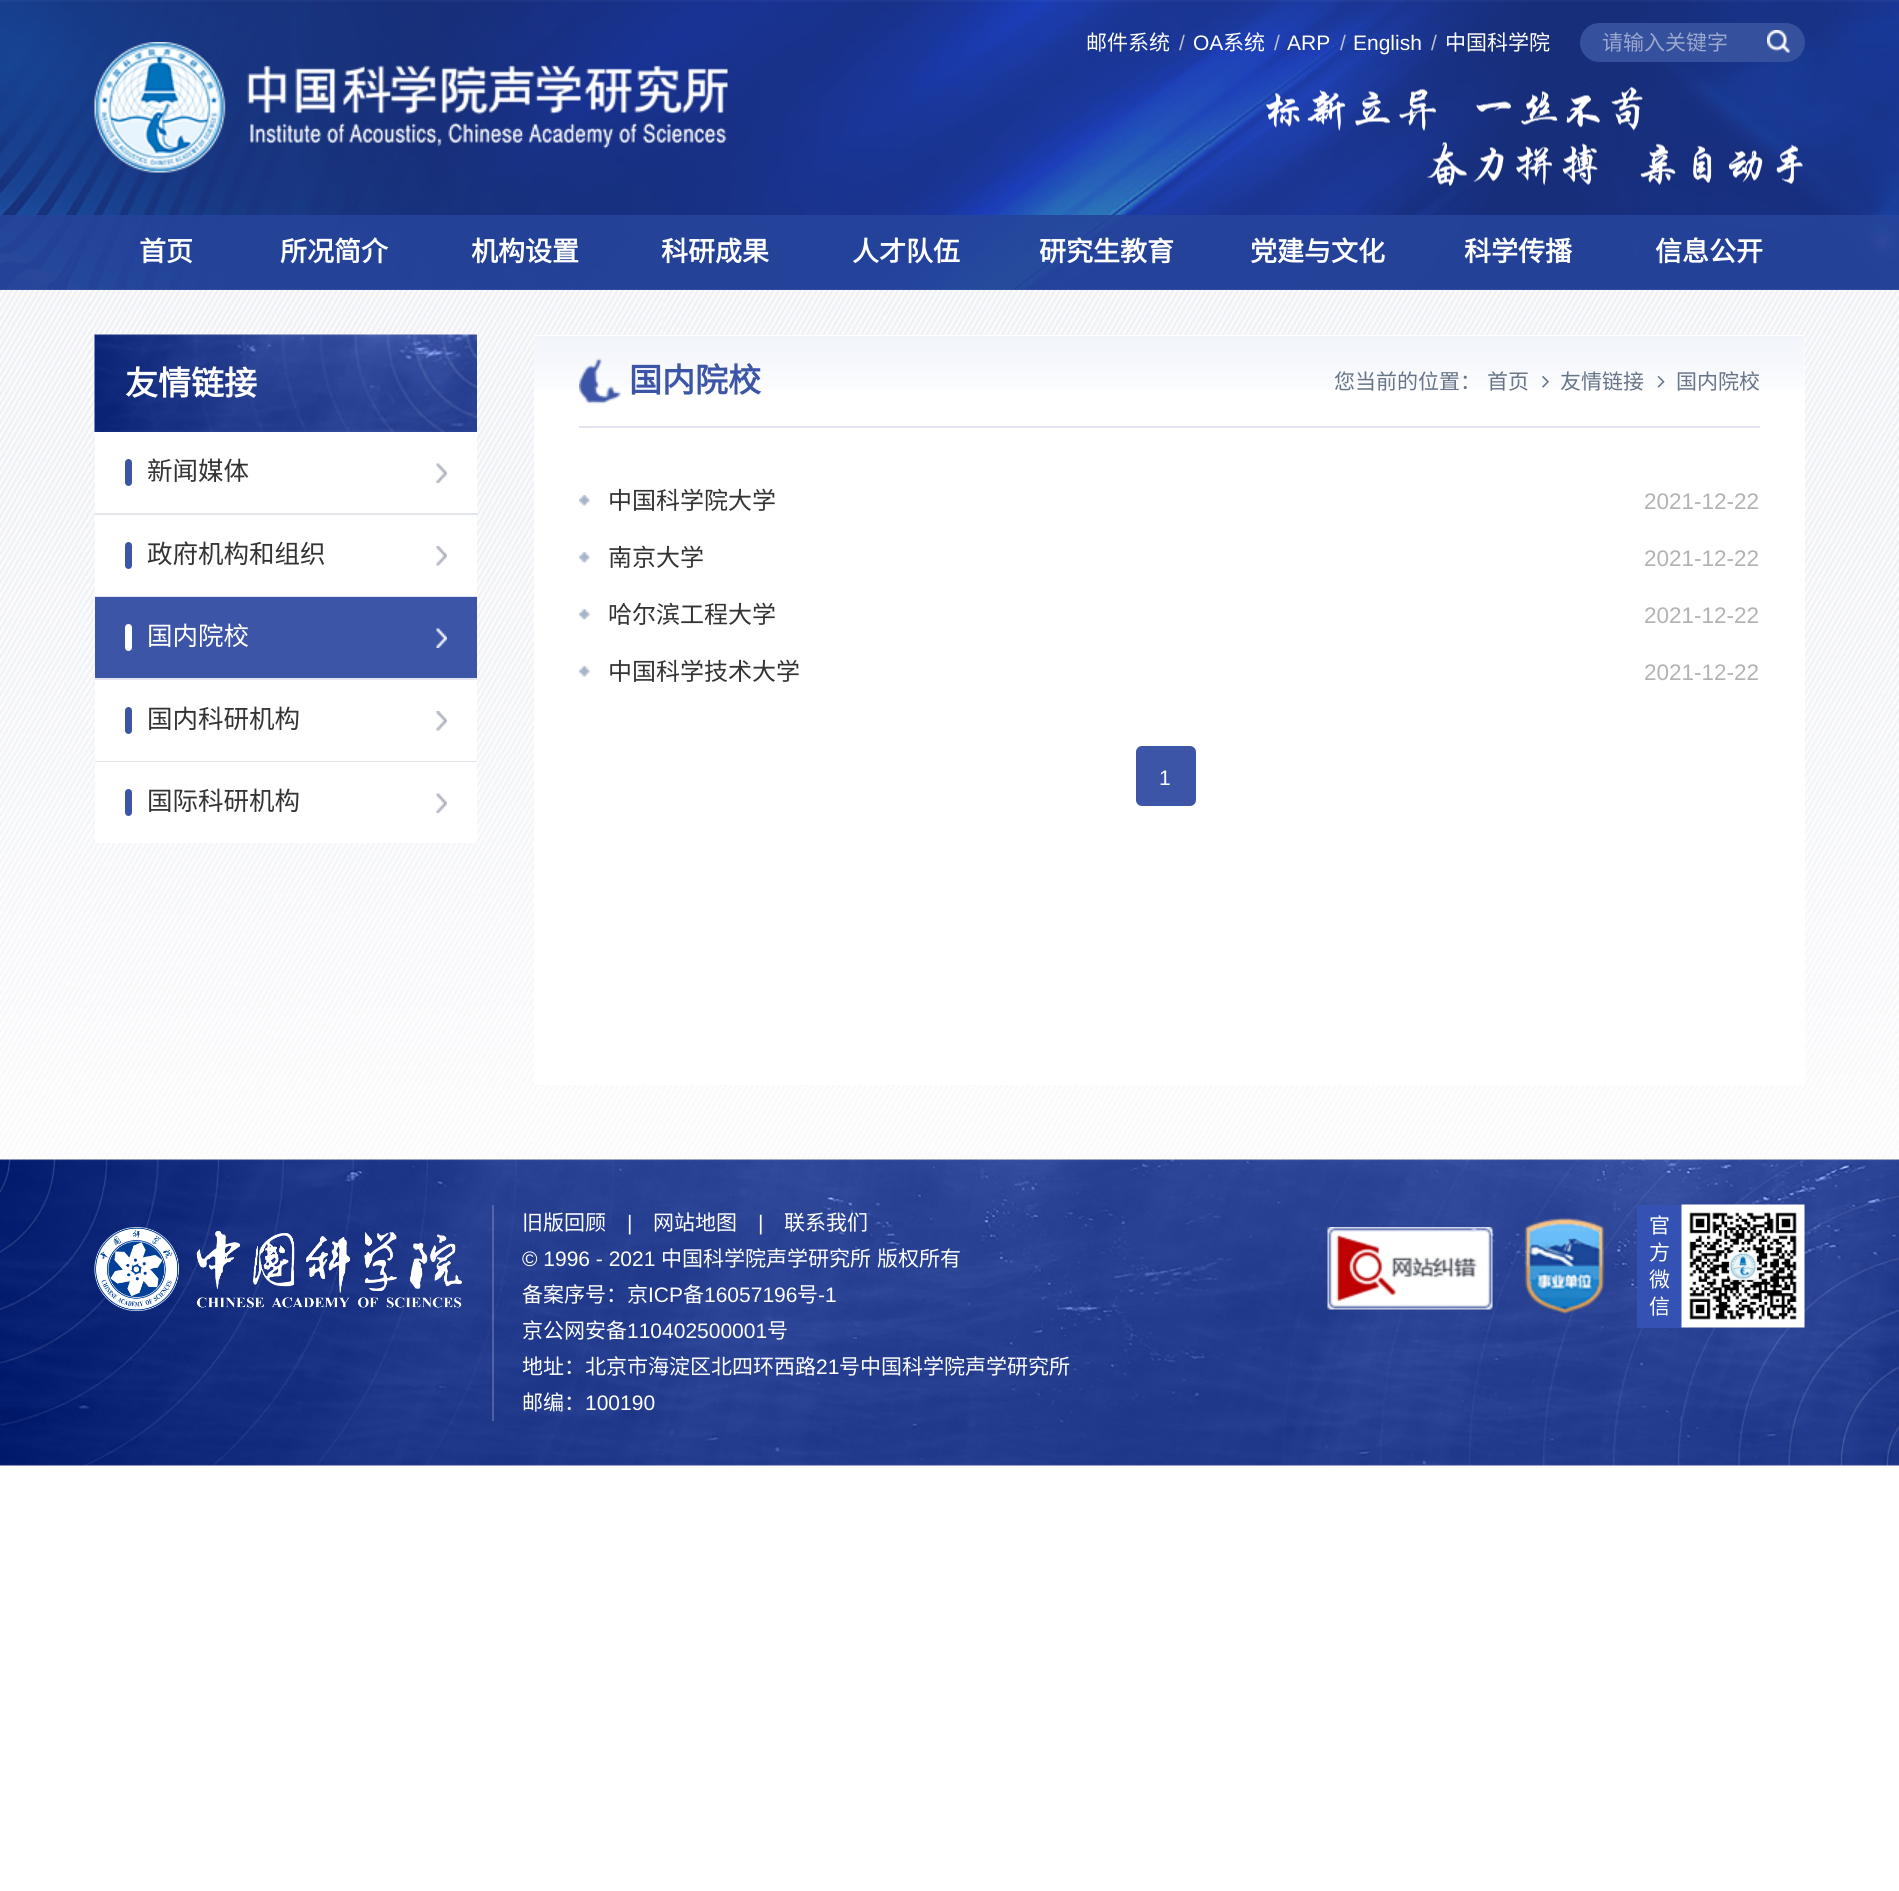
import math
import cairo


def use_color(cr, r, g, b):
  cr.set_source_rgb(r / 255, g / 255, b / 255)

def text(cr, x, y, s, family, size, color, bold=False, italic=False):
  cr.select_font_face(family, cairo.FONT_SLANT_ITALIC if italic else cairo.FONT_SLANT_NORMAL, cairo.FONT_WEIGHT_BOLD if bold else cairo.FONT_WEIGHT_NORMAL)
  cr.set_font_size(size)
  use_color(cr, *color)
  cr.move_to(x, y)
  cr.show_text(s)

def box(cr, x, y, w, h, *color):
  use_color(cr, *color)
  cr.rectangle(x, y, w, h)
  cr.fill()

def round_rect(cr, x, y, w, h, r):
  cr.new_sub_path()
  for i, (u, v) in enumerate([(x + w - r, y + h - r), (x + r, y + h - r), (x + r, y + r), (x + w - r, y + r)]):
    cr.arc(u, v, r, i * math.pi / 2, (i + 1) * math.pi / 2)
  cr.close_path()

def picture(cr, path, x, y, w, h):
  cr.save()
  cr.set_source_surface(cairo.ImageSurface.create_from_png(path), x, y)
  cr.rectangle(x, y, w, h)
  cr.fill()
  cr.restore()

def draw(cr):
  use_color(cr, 255, 255, 255)
  cr.paint()
  picture(cr, "img_01.png", 0, 0, 1899, 290)
  picture(cr, "img_02.png", 94, 42, 634, 131)
  use_color(cr, 53, 80, 157)
  round_rect(cr, 1580, 23, 225, 39, 19.5)
  cr.fill()
  picture(cr, "img_03.png", 1767, 30, 23, 23)
  picture(cr, "img_04.png", 1590, 84, 2, 1)
  picture(cr, "img_05.png", 1266, 86, 537, 100)
  picture(cr, "img_06.png", 0, 289, 1899, 870)
  cr.set_source_rgba(0.145, 0.267, 0.604, 0.9)
  cr.rectangle(0, 215, 1899, 75)
  cr.fill()
  picture(cr, "img_07.png", 94, 334, 383, 98)
  box(cr, 95, 432, 382, 81, 255, 255, 255)
  box(cr, 95, 513, 382, 2, 226, 229, 239)
  use_color(cr, 61, 85, 167)
  round_rect(cr, 125, 459, 7, 27, 3.5)
  cr.fill()
  picture(cr, "img_08.png", 436, 463, 11, 20)
  box(cr, 95, 515, 382, 81, 255, 255, 255)
  box(cr, 95, 596, 382, 1, 226, 229, 239)
  use_color(cr, 61, 85, 167)
  round_rect(cr, 125, 542, 7, 27, 3.5)
  cr.fill()
  picture(cr, "img_09.png", 436, 546, 11, 20)
  box(cr, 95, 597, 382, 81, 61, 85, 167)
  box(cr, 95, 678, 382, 2, 226, 229, 239)
  use_color(cr, 255, 255, 255)
  round_rect(cr, 125, 624, 7, 27, 3.5)
  cr.fill()
  picture(cr, "img_10.png", 436, 628, 11, 20)
  box(cr, 95, 680, 382, 81, 255, 255, 255)
  box(cr, 95, 761, 382, 1, 226, 229, 239)
  use_color(cr, 61, 85, 167)
  round_rect(cr, 125, 707, 7, 27, 3.5)
  cr.fill()
  picture(cr, "img_09.png", 436, 711, 11, 20)
  box(cr, 95, 762, 382, 81, 255, 255, 255)
  use_color(cr, 61, 85, 167)
  round_rect(cr, 125, 789, 7, 27, 3.5)
  cr.fill()
  picture(cr, "img_08.png", 436, 793, 11, 20)
  box(cr, 534, 335, 1271, 750, 255, 255, 255)
  picture(cr, "img_11.png", 534, 336, 1271, 53)
  box(cr, 579, 426, 1181, 2, 226, 229, 239)
  picture(cr, "img_12.png", 579, 358, 42, 46)
  picture(cr, "img_13.png", 1542, 376, 7, 12)
  picture(cr, "img_14.png", 1657, 376, 8, 12)
  picture(cr, "img_15.png", 579, 495, 11, 11)
  picture(cr, "img_15.png", 579, 552, 11, 11)
  picture(cr, "img_15.png", 579, 609, 11, 11)
  picture(cr, "img_15.png", 579, 666, 11, 11)
  use_color(cr, 61, 85, 167)
  round_rect(cr, 1137, 747, 58, 58, 5)
  cr.fill_preserve()
  cr.stroke()
  picture(cr, "img_16.png", 0, 1159, 1899, 307)
  picture(cr, "img_17.png", 94, 1227, 368, 84)
  cr.set_source_rgba(1, 1, 1, 0.2)
  cr.rectangle(492, 1205, 2, 216)
  cr.fill()
  picture(cr, "img_18.png", 1327, 1227, 166, 83)
  picture(cr, "img_19.png", 1524, 1217, 81, 98)
  box(cr, 1637, 1205, 45, 123, 51, 82, 179)
  picture(cr, "img_20.png", 1681, 1204, 124, 124)
  text(cr, 1086, 50, "邮件系统", "Noto Sans CJK SC", 21, (255, 255, 255))
  text(cr, 1179, 50, "/", "Liberation Sans", 21, (187, 191, 202))
  text(cr, 1193, 50, "OA", "Liberation Sans", 21, (255, 255, 255))
  text(cr, 1223, 50, "系统", "Noto Sans CJK SC", 21, (255, 255, 255))
  text(cr, 1274, 50, "/", "Liberation Sans", 21, (187, 191, 202))
  text(cr, 1287, 50, "ARP", "Liberation Sans", 21, (255, 255, 255))
  text(cr, 1340, 50, "/", "Liberation Sans", 21, (187, 191, 202))
  text(cr, 1353, 50, "English", "Liberation Sans", 21, (255, 255, 255))
  text(cr, 1431, 50, "/", "Liberation Sans", 21, (187, 191, 202))
  text(cr, 1445, 50, "中国科学院", "Noto Sans CJK SC", 21, (255, 255, 255))
  text(cr, 1602, 50, "请输入关键字", "Noto Sans CJK SC", 21, (154, 168, 206))
  text(cr, 139, 261, "首页", "Noto Sans CJK SC", 27, (255, 255, 255), bold=True)
  text(cr, 280, 261, "所况简介", "Noto Sans CJK SC", 27, (255, 255, 255), bold=True)
  text(cr, 471, 261, "机构设置", "Noto Sans CJK SC", 27, (255, 255, 255), bold=True)
  text(cr, 661, 261, "科研成果", "Noto Sans CJK SC", 27, (255, 255, 255), bold=True)
  text(cr, 852, 261, "人才队伍", "Noto Sans CJK SC", 27, (255, 255, 255), bold=True)
  text(cr, 1039, 261, "研究生教育", "Noto Sans CJK SC", 27, (255, 255, 255), bold=True)
  text(cr, 1250, 261, "党建与文化", "Noto Sans CJK SC", 27, (255, 255, 255), bold=True)
  text(cr, 1464, 261, "科学传播", "Noto Sans CJK SC", 27, (255, 255, 255), bold=True)
  text(cr, 1655, 261, "信息公开", "Noto Sans CJK SC", 27, (255, 255, 255), bold=True)
  text(cr, 125, 395, "友情链接", "Noto Sans CJK SC", 33, (255, 255, 255), bold=True)
  text(cr, 147, 480, "新闻媒体", "Noto Sans CJK SC", 25.5, (51, 51, 51))
  text(cr, 147, 563, "政府机构和组织", "Noto Sans CJK SC", 25.5, (51, 51, 51))
  text(cr, 147, 645, "国内院校", "Noto Sans CJK SC", 25.5, (255, 255, 255))
  text(cr, 147, 728, "国内科研机构", "Noto Sans CJK SC", 25.5, (51, 51, 51))
  text(cr, 147, 810, "国际科研机构", "Noto Sans CJK SC", 25.5, (51, 51, 51))
  text(cr, 629, 392, "国内院校", "Noto Sans CJK SC", 33, (61, 85, 167), bold=True)
  text(cr, 1334, 389, "您当前的位置：", "Noto Sans CJK SC", 21, (103, 117, 136))
  text(cr, 1487, 389, "首页", "Noto Sans CJK SC", 21, (103, 117, 136))
  text(cr, 1560, 389, "友情链接", "Noto Sans CJK SC", 21, (103, 117, 136))
  text(cr, 1676, 389, "国内院校", "Noto Sans CJK SC", 21, (103, 117, 136))
  text(cr, 608, 509, "中国科学院大学", "Noto Sans CJK SC", 24, (51, 51, 51))
  text(cr, 1644, 509, "2021-12-22", "Liberation Sans", 22.5, (179, 179, 179))
  text(cr, 608, 566, "南京大学", "Noto Sans CJK SC", 24, (51, 51, 51))
  text(cr, 1644, 566, "2021-12-22", "Liberation Sans", 22.5, (179, 179, 179))
  text(cr, 608, 623, "哈尔滨工程大学", "Noto Sans CJK SC", 24, (51, 51, 51))
  text(cr, 1644, 623, "2021-12-22", "Liberation Sans", 22.5, (179, 179, 179))
  text(cr, 608, 680, "中国科学技术大学", "Noto Sans CJK SC", 24, (51, 51, 51))
  text(cr, 1644, 680, "2021-12-22", "Liberation Sans", 22.5, (179, 179, 179))
  text(cr, 1159, 785, "1", "Liberation Sans", 21, (255, 255, 255))
  text(cr, 522, 1230, "旧版回顾", "Noto Sans CJK SC", 21, (255, 255, 255))
  text(cr, 627, 1230, "|", "Liberation Sans", 21, (255, 255, 255))
  text(cr, 653, 1230, "网站地图", "Noto Sans CJK SC", 21, (255, 255, 255))
  text(cr, 758, 1230, "|", "Liberation Sans", 21, (255, 255, 255))
  text(cr, 784, 1230, "联系我们", "Noto Sans CJK SC", 21, (255, 255, 255))
  text(cr, 522, 1266, "© 1996 - 2021", "Liberation Sans", 21, (255, 255, 255))
  text(cr, 661, 1266, "中国科学院声学研究所", "Noto Sans CJK SC", 21, (255, 255, 255))
  text(cr, 877, 1266, "版权所有", "Noto Sans CJK SC", 21, (255, 255, 255))
  text(cr, 522, 1302, "备案序号：京", "Noto Sans CJK SC", 21, (255, 255, 255))
  text(cr, 648, 1302, "ICP", "Liberation Sans", 21, (255, 255, 255))
  text(cr, 683, 1302, "备", "Noto Sans CJK SC", 21, (255, 255, 255))
  text(cr, 704, 1302, "16057196", "Liberation Sans", 21, (255, 255, 255))
  text(cr, 797, 1302, "号", "Noto Sans CJK SC", 21, (255, 255, 255))
  text(cr, 818, 1302, "-1", "Liberation Sans", 21, (255, 255, 255))
  text(cr, 522, 1338, "京公网安备", "Noto Sans CJK SC", 21, (255, 255, 255))
  text(cr, 627, 1338, "110402500001", "Liberation Sans", 21, (255, 255, 255))
  text(cr, 767, 1338, "号", "Noto Sans CJK SC", 21, (255, 255, 255))
  text(cr, 522, 1374, "地址：北京市海淀区北四环西路", "Noto Sans CJK SC", 21, (255, 255, 255))
  text(cr, 816, 1374, "21", "Liberation Sans", 21, (255, 255, 255))
  text(cr, 839, 1374, "号中国科学院声学研究所", "Noto Sans CJK SC", 21, (255, 255, 255))
  text(cr, 522, 1410, "邮编：", "Noto Sans CJK SC", 21, (255, 255, 255))
  text(cr, 585, 1410, "100190", "Liberation Sans", 21, (255, 255, 255))
  text(cr, 1649, 1233, "官", "Noto Sans CJK SC", 21, (255, 255, 255))
  text(cr, 1649, 1260, "方", "Noto Sans CJK SC", 21, (255, 255, 255))
  text(cr, 1649, 1287, "微", "Noto Sans CJK SC", 21, (255, 255, 255))
  text(cr, 1649, 1314, "信", "Noto Sans CJK SC", 21, (255, 255, 255))


surface = cairo.ImageSurface(cairo.FORMAT_RGB24, 1899, 1891)
cr = cairo.Context(surface)
options = cairo.FontOptions()
options.set_hint_metrics(cairo.HINT_METRICS_OFF)
options.set_hint_style(cairo.HINT_STYLE_NONE)
cr.set_font_options(options)
cr.set_miter_limit(4)
draw(cr)
surface.write_to_png("out.png")
